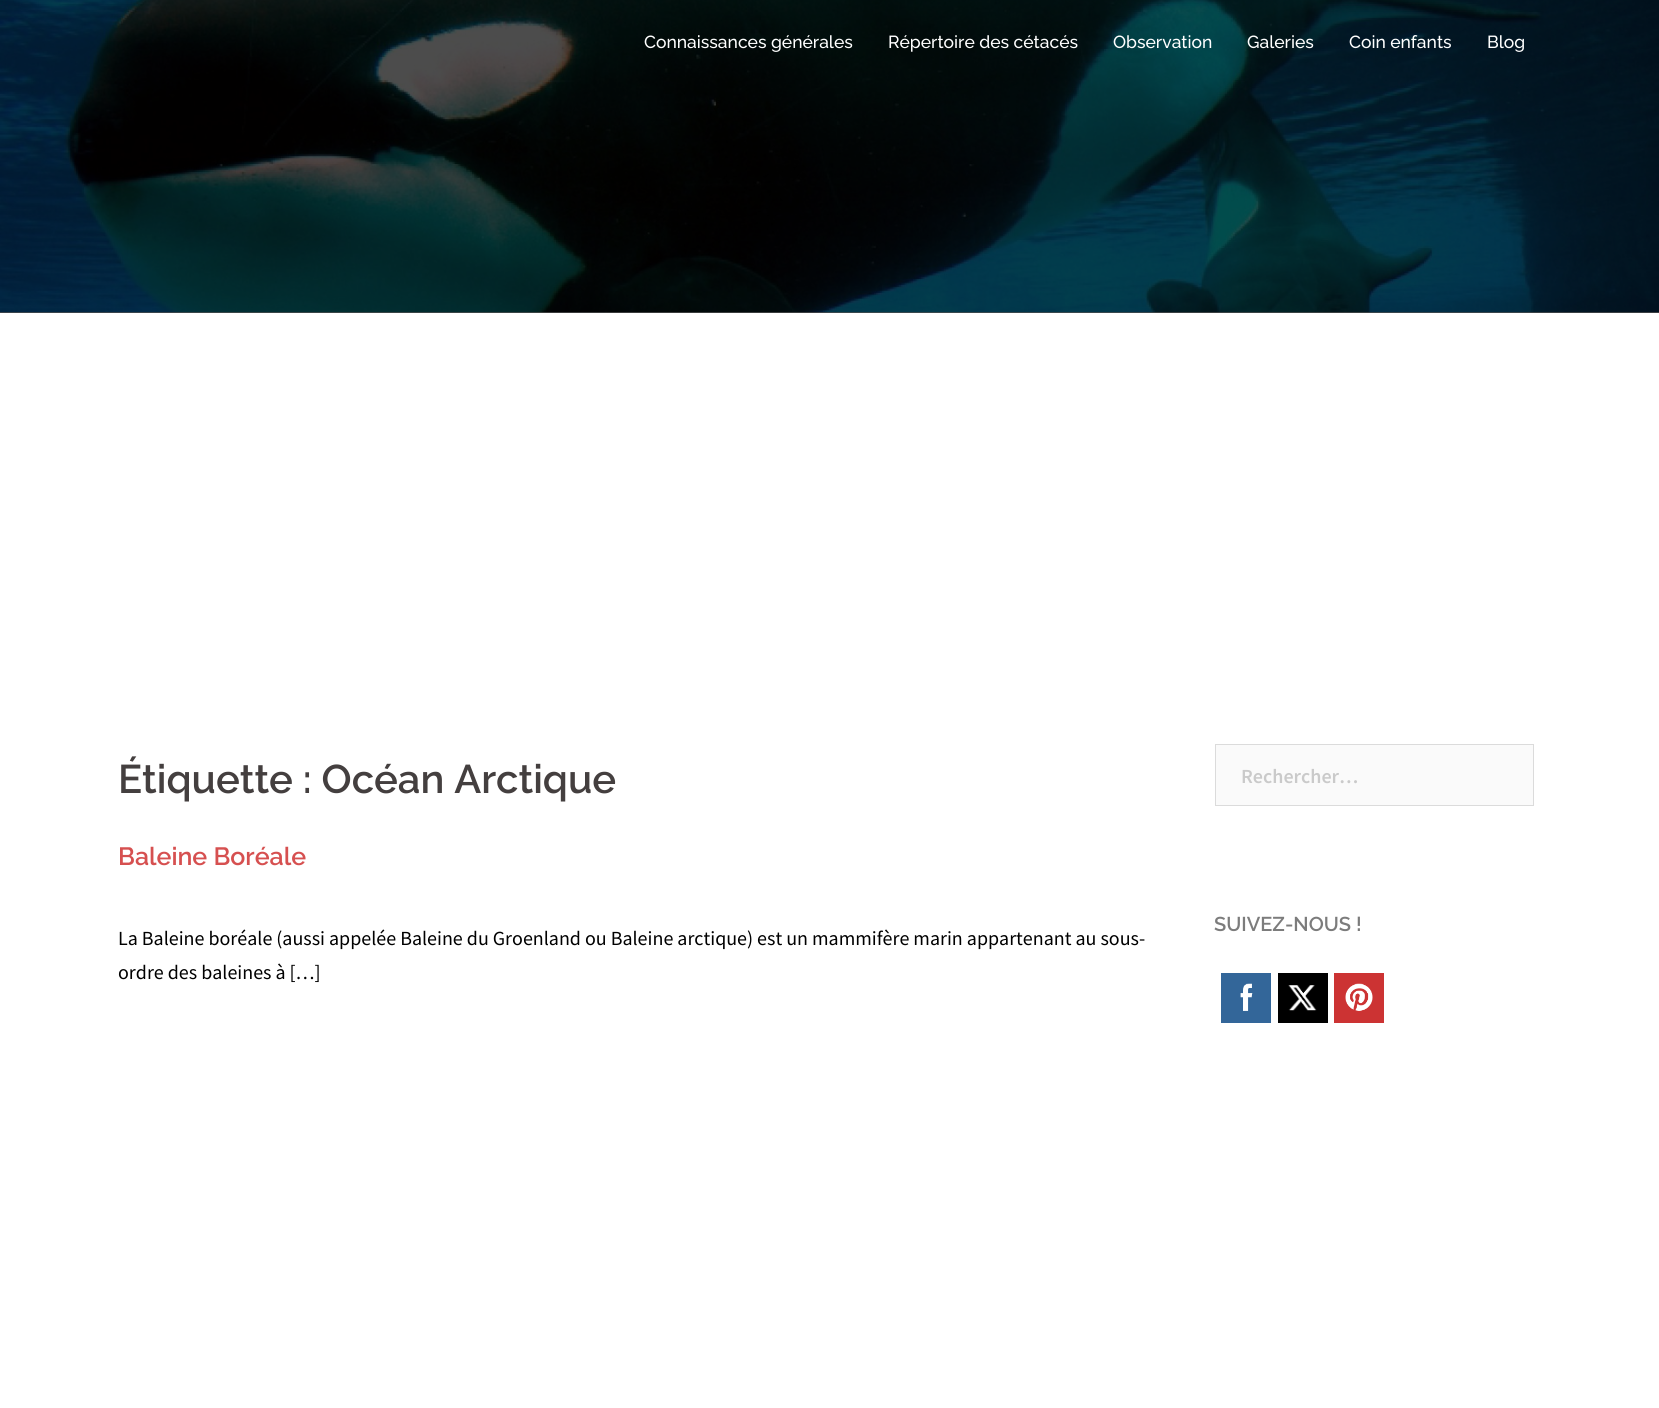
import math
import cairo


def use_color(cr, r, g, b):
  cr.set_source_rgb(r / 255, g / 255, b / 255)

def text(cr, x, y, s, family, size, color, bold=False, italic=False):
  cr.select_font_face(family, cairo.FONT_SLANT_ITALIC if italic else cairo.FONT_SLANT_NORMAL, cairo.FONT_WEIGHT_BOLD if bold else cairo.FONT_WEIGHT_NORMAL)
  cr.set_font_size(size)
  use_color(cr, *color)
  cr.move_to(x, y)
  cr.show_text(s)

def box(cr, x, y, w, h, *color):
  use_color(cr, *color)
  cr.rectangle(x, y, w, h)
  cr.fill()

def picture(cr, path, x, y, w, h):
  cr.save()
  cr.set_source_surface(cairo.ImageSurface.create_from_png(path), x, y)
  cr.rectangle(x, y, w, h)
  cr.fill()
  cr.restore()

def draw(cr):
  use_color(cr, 255, 255, 255)
  cr.paint()
  box(cr, 0, 312, 1659, 1, 77, 77, 77)
  picture(cr, "img_01.png", 0, 0, 1659, 313)
  use_color(cr, 250, 250, 250)
  cr.rectangle(1215.5, 744.5, 318, 61)
  cr.fill_preserve()
  use_color(cr, 219, 219, 219)
  cr.set_line_width(1)
  cr.stroke()
  box(cr, 1221, 973, 50, 50, 51, 102, 153)
  picture(cr, "img_02.png", 1240, 983, 13, 28)
  box(cr, 1278, 973, 50, 50, 0, 0, 0)
  picture(cr, "img_03.png", 1288, 985, 29, 26)
  box(cr, 1334, 973, 50, 50, 204, 51, 51)
  picture(cr, "img_04.png", 1345, 983, 28, 28)
  text(cr, 644, 48, "Connaissances générales", "Raleway Medium", 17.5, (255, 255, 255))
  text(cr, 888, 48, "Répertoire des cétacés", "Raleway Medium", 17.5, (255, 255, 255))
  text(cr, 1113, 48, "Observation", "Raleway Medium", 17.5, (255, 255, 255))
  text(cr, 1247, 48, "Galeries", "Raleway Medium", 17.5, (255, 255, 255))
  text(cr, 1349, 48, "Coin enfants", "Raleway Medium", 17.5, (255, 255, 255))
  text(cr, 1487, 48, "Blog", "Raleway Medium", 17.5, (255, 255, 255))
  text(cr, 118, 793, "Étiquette : Océan Arctique", "Raleway SemiBold", 40, (68, 63, 63))
  text(cr, 118, 865, "Baleine Boréale", "Raleway SemiBold", 25, (214, 80, 80))
  text(cr, 118, 945, "La Baleine boréale (aussi appelée Baleine du Groenland ou Baleine arctique) est un mammifère marin appartenant au sous-", "Source Sans Pro", 20, (0, 0, 0))
  text(cr, 118, 979, "ordre des baleines à […]", "Source Sans Pro", 20, (0, 0, 0))
  text(cr, 1241, 783, "Rechercher…", "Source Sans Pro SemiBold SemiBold", 20, (202, 202, 202))
  text(cr, 1214, 931, "SUIVEZ-NOUS !", "Raleway SemiBold", 20, (124, 124, 124))


surface = cairo.ImageSurface(cairo.FORMAT_RGB24, 1659, 1408)
cr = cairo.Context(surface)
options = cairo.FontOptions()
options.set_hint_metrics(cairo.HINT_METRICS_OFF)
options.set_hint_style(cairo.HINT_STYLE_NONE)
cr.set_font_options(options)
cr.set_miter_limit(4)
draw(cr)
surface.write_to_png("out.png")
